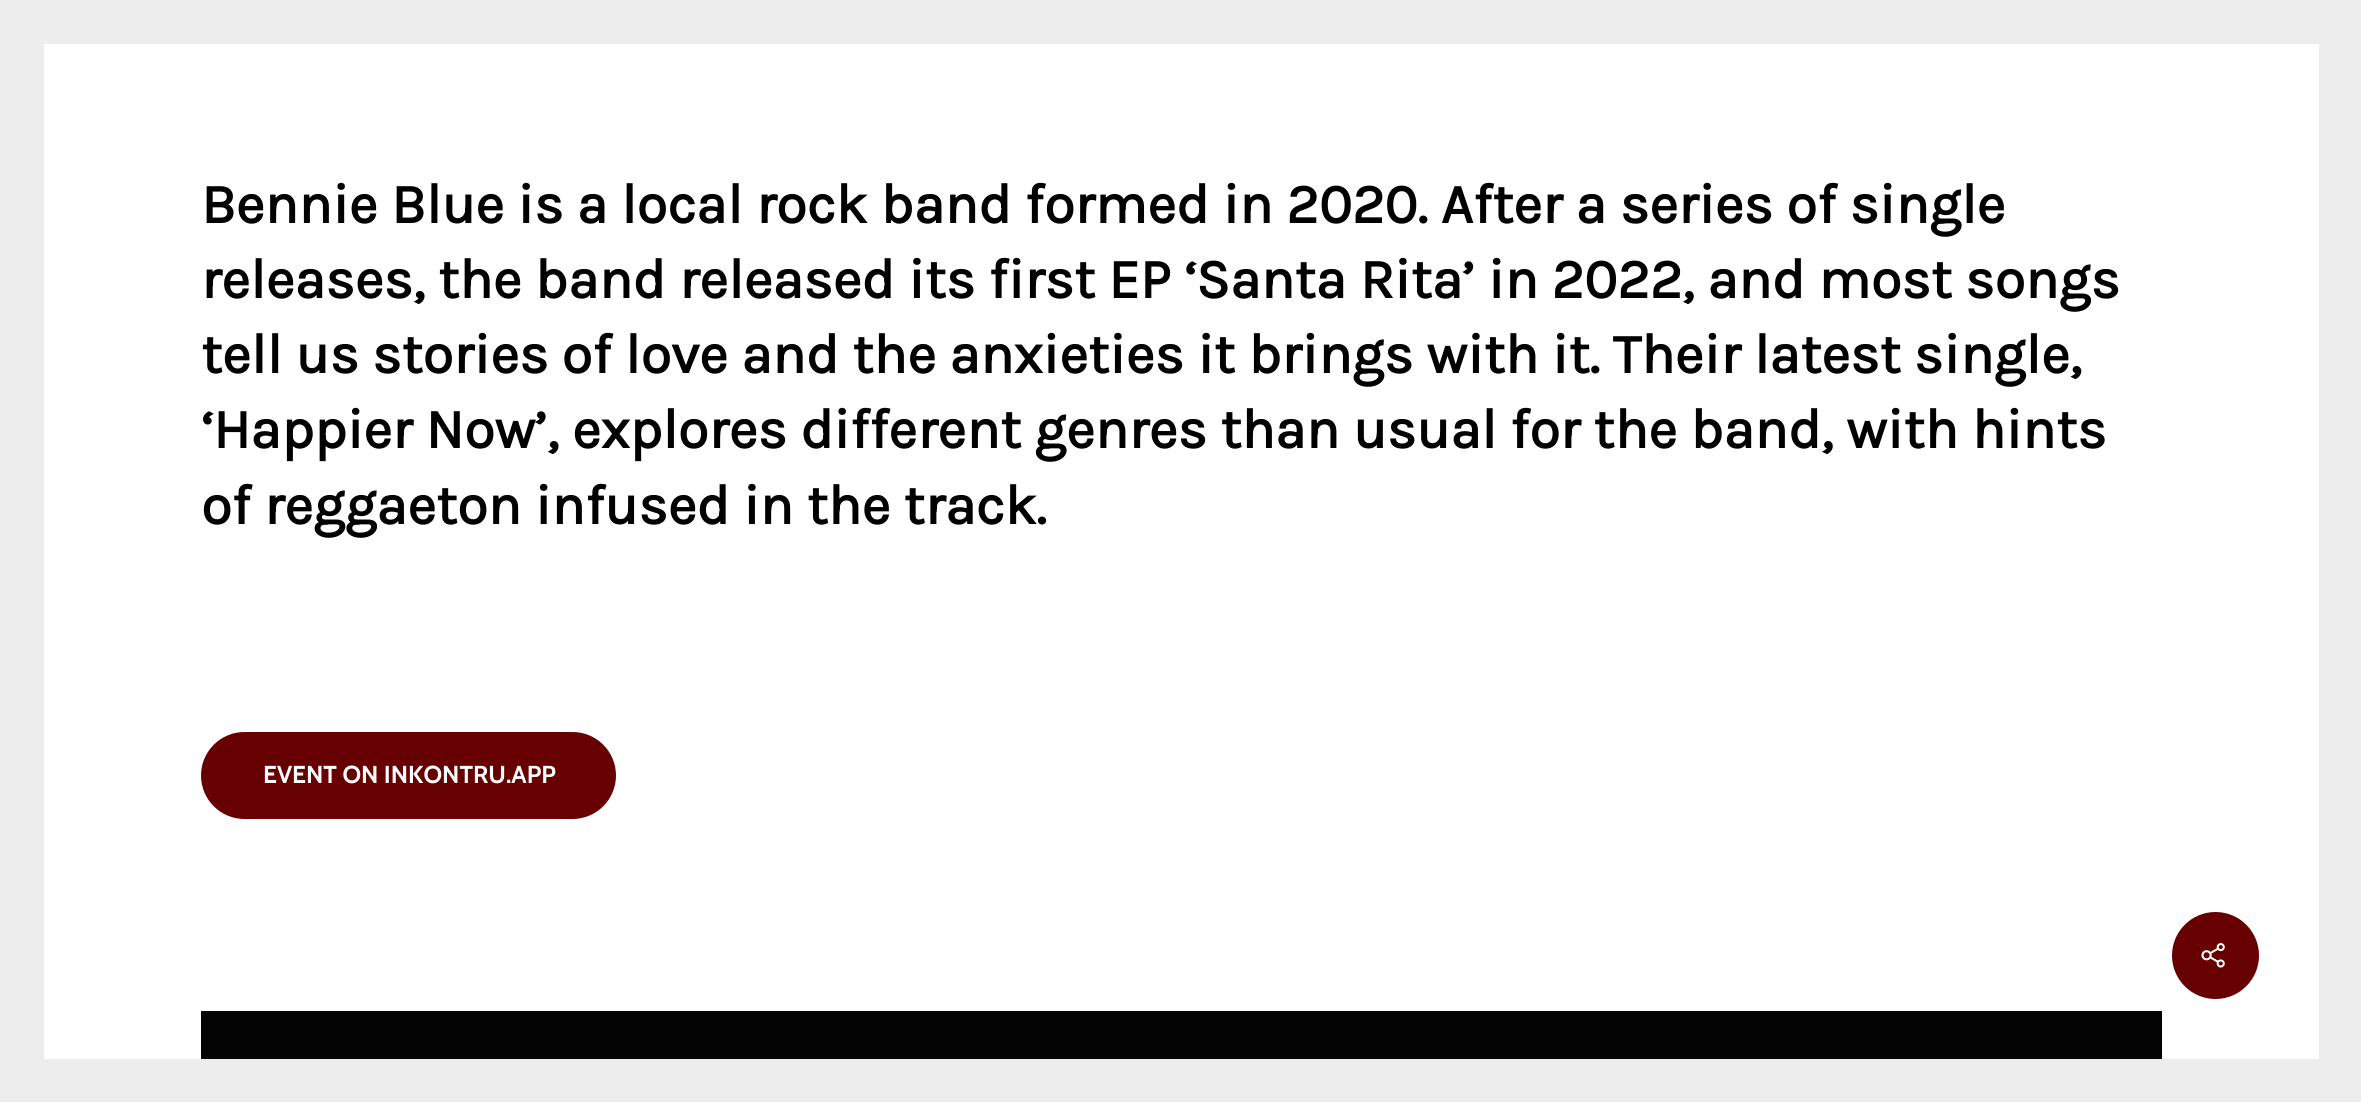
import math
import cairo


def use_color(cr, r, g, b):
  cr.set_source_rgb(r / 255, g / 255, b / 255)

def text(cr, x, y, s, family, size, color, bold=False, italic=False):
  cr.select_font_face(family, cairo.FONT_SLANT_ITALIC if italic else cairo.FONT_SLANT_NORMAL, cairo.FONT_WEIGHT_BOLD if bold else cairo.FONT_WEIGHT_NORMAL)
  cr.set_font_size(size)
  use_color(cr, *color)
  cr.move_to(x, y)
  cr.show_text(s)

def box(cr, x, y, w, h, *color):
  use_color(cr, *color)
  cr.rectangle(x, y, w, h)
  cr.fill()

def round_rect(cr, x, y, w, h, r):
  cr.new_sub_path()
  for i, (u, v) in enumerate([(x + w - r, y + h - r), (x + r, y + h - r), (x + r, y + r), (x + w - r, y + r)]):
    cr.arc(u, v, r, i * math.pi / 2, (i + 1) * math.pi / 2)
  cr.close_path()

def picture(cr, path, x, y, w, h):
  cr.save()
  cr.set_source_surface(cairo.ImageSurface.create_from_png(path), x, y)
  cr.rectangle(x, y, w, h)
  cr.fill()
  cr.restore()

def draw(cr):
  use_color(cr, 255, 255, 255)
  cr.paint()
  box(cr, 0, 0, 44, 1102, 237, 237, 237)
  box(cr, 44, 0, 2275, 44, 237, 237, 237)
  box(cr, 2319, 0, 42, 1059, 237, 237, 237)
  use_color(cr, 103, 0, 1)
  round_rect(cr, 201, 732, 415, 87, 43.5)
  cr.fill()
  box(cr, 201, 1011, 1961, 48, 4, 4, 4)
  use_color(cr, 103, 0, 1)
  cr.arc(2215.5, 955.5, 43.5, 0, 2 * math.pi)
  cr.fill()
  picture(cr, "img_01.png", 2201, 943, 24, 25)
  box(cr, 44, 1059, 2317, 43, 237, 237, 237)
  text(cr, 201, 223, "Bennie Blue is a local rock band formed in 2020. After a series of single", "Karla", 56, (0, 0, 0), bold=True)
  text(cr, 201, 298, "releases, the band released its first EP ‘Santa Rita’ in 2022, and most songs", "Karla", 56, (0, 0, 0), bold=True)
  text(cr, 201, 373, "tell us stories of love and the anxieties it brings with it. Their latest single,", "Karla", 56, (0, 0, 0), bold=True)
  text(cr, 201, 448, "‘Happier Now’, explores different genres than usual for the band, with hints", "Karla", 56, (0, 0, 0), bold=True)
  text(cr, 201, 524, "of reggaeton infused in the track.", "Karla", 56, (0, 0, 0), bold=True)
  text(cr, 263, 783, "EVENT ON INKONTRU.APP", "Cabin", 24.5, (255, 255, 255), bold=True)


surface = cairo.ImageSurface(cairo.FORMAT_RGB24, 2361, 1102)
cr = cairo.Context(surface)
options = cairo.FontOptions()
options.set_hint_metrics(cairo.HINT_METRICS_OFF)
options.set_hint_style(cairo.HINT_STYLE_NONE)
cr.set_font_options(options)
cr.set_miter_limit(4)
draw(cr)
surface.write_to_png("out.png")
